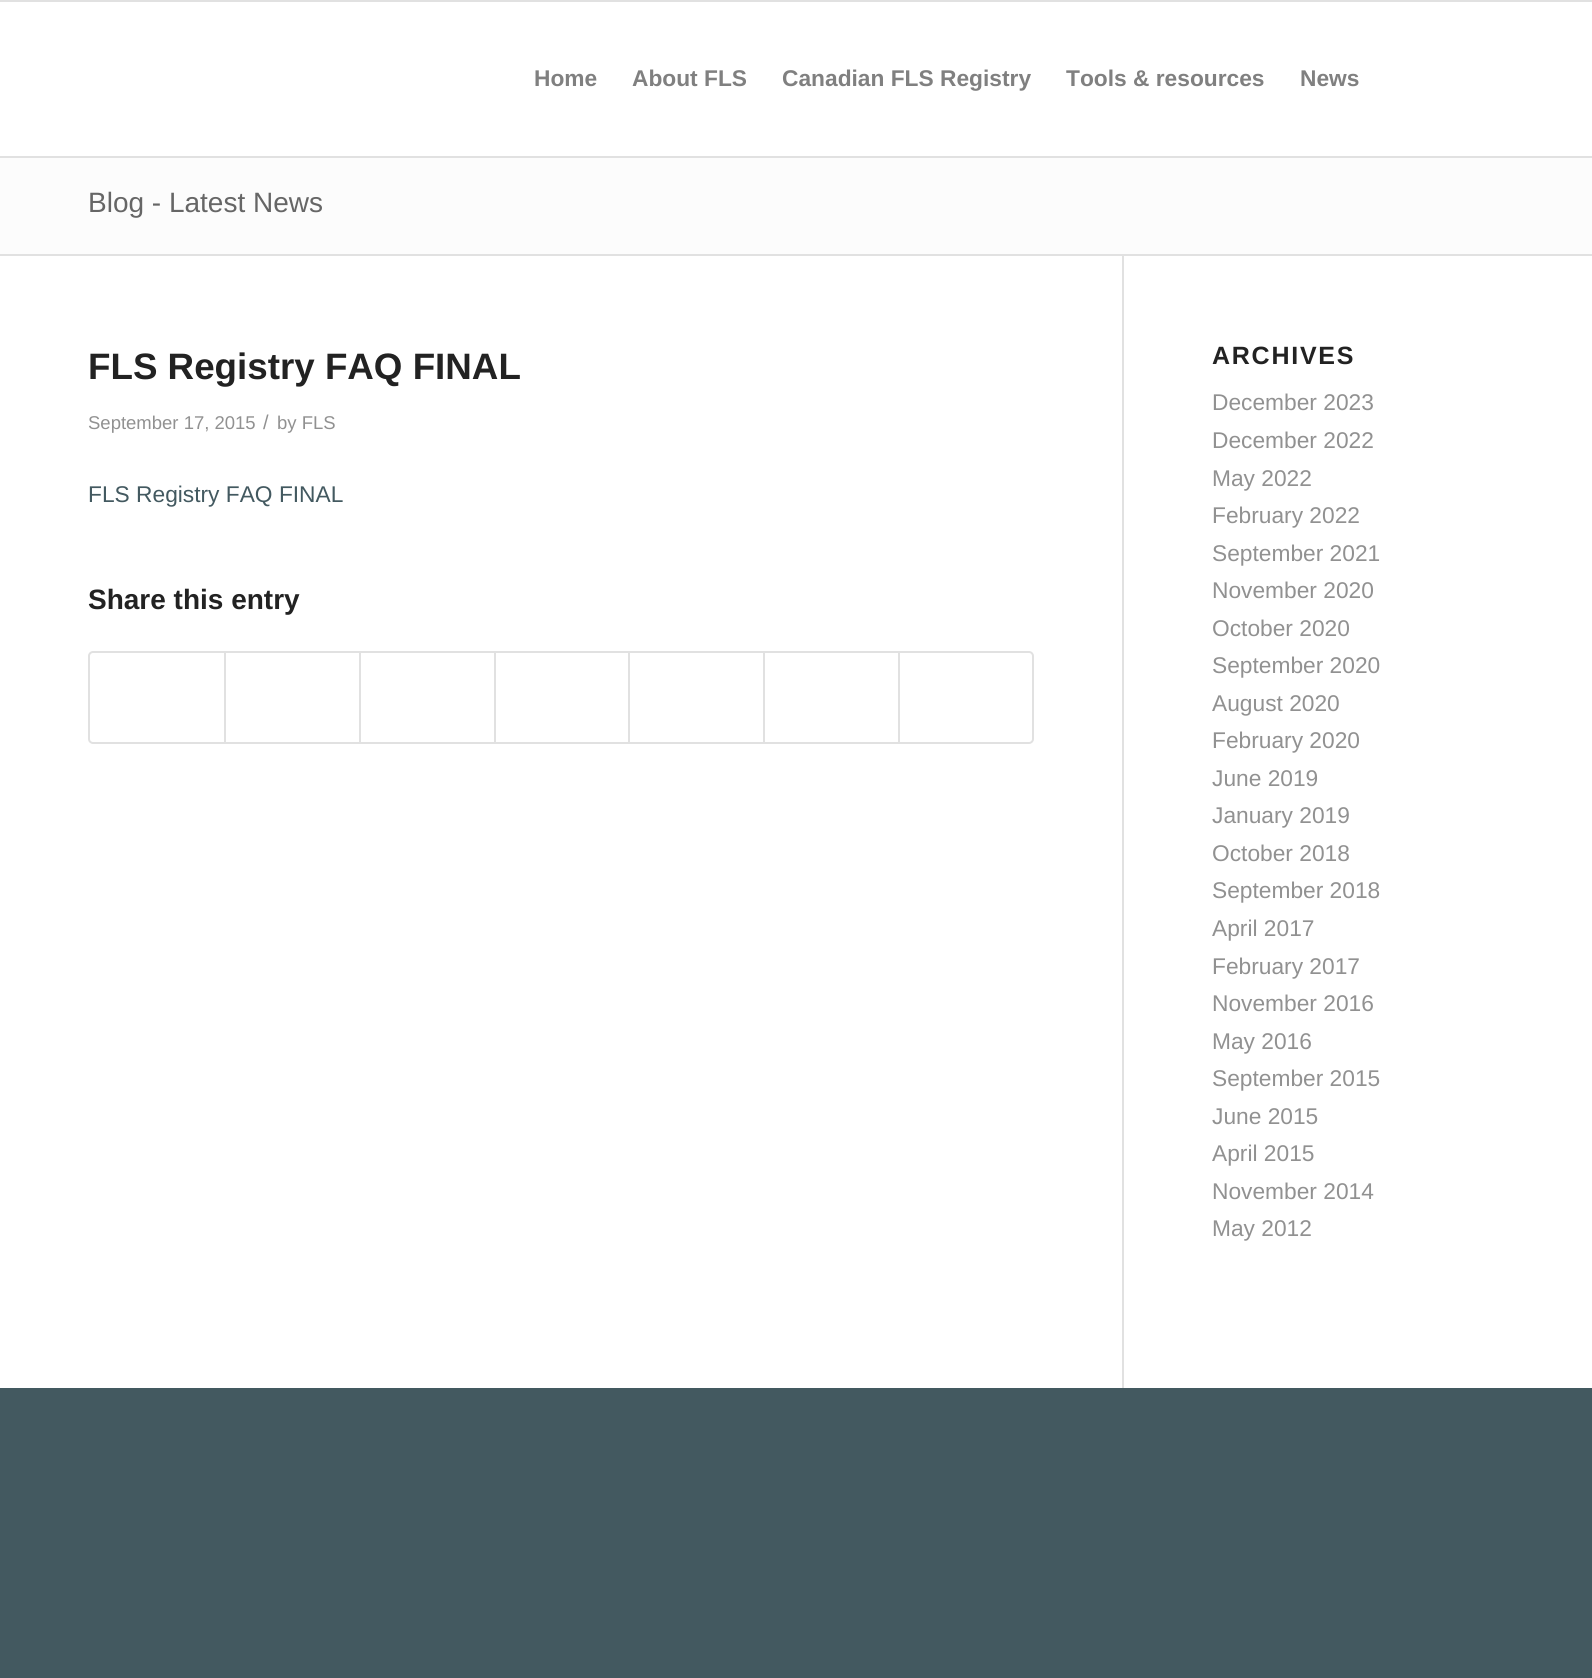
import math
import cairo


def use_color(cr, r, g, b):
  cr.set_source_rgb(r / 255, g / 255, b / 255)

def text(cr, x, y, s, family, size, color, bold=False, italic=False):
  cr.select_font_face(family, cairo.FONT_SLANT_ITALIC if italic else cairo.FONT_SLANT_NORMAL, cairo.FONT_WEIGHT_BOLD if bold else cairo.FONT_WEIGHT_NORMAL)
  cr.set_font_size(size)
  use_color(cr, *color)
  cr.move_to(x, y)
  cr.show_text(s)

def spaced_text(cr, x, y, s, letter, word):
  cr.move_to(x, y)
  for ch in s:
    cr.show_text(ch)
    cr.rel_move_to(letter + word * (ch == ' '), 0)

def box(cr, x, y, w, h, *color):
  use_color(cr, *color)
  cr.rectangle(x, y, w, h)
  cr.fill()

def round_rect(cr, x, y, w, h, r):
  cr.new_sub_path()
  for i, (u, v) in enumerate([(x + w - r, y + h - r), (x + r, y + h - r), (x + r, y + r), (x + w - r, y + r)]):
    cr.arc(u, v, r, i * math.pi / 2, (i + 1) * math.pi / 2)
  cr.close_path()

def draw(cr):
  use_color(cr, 67, 89, 96)
  cr.paint()
  box(cr, 0, 256, 1592, 1132, 255, 255, 255)
  box(cr, 0, 2, 1592, 154, 255, 255, 255)
  box(cr, 0, 0, 1592, 2, 225, 225, 225)
  box(cr, 0, 156, 1592, 2, 225, 225, 225)
  box(cr, 0, 158, 1592, 96, 252, 252, 252)
  box(cr, 0, 254, 1592, 2, 225, 225, 225)
  round_rect(cr, 89, 652, 944, 91, 4)
  cr.stroke()
  box(cr, 224, 653, 2, 89, 225, 225, 225)
  box(cr, 359, 653, 2, 89, 225, 225, 225)
  box(cr, 494, 653, 2, 89, 225, 225, 225)
  box(cr, 628, 653, 2, 89, 225, 225, 225)
  box(cr, 763, 653, 2, 89, 225, 225, 225)
  box(cr, 898, 653, 2, 89, 225, 225, 225)
  box(cr, 1122, 256, 2, 1132, 225, 225, 225)
  text(cr, 534, 86, "Home", "Liberation Sans", 22.75, (128, 128, 128), bold=True)
  text(cr, 632, 86, "About FLS", "Liberation Sans", 22.75, (128, 128, 128), bold=True)
  text(cr, 782, 86, "Canadian FLS Registry", "Liberation Sans", 22.75, (128, 128, 128), bold=True)
  text(cr, 1066, 86, "Tools & resources", "Liberation Sans", 22.75, (128, 128, 128), bold=True)
  text(cr, 1300, 86, "News", "Liberation Sans", 22.75, (128, 128, 128), bold=True)
  text(cr, 88, 212, "Blog - Latest News", "Liberation Sans", 28, (102, 102, 102))
  text(cr, 88, 379, "FLS Registry FAQ FINAL", "Liberation Sans", 36.75, (34, 34, 34), bold=True)
  text(cr, 88, 429, "September 17, 2015", "Liberation Sans", 18.5, (145, 145, 145))
  text(cr, 263, 429, "/", "Liberation Sans", 20, (145, 145, 145))
  text(cr, 277, 429, "by FLS", "Liberation Sans", 18.5, (145, 145, 145))
  text(cr, 88, 502, "FLS Registry FAQ FINAL", "Liberation Sans", 22.75, (67, 89, 96))
  text(cr, 88, 609, "Share this entry", "Liberation Sans", 28, (34, 34, 34), bold=True)
  cr.set_font_size(25)
  spaced_text(cr, 1212, 364, "ARCHIVES", 1.75, 0)
  text(cr, 1212, 410, "December 2023", "Liberation Sans", 22.75, (145, 145, 145))
  text(cr, 1212, 448, "December 2022", "Liberation Sans", 22.75, (145, 145, 145))
  text(cr, 1212, 486, "May 2022", "Liberation Sans", 22.75, (145, 145, 145))
  text(cr, 1212, 523, "February 2022", "Liberation Sans", 22.75, (145, 145, 145))
  text(cr, 1212, 561, "September 2021", "Liberation Sans", 22.75, (145, 145, 145))
  text(cr, 1212, 598, "November 2020", "Liberation Sans", 22.75, (145, 145, 145))
  text(cr, 1212, 636, "October 2020", "Liberation Sans", 22.75, (145, 145, 145))
  text(cr, 1212, 673, "September 2020", "Liberation Sans", 22.75, (145, 145, 145))
  text(cr, 1212, 711, "August 2020", "Liberation Sans", 22.75, (145, 145, 145))
  text(cr, 1212, 748, "February 2020", "Liberation Sans", 22.75, (145, 145, 145))
  text(cr, 1212, 786, "June 2019", "Liberation Sans", 22.75, (145, 145, 145))
  text(cr, 1212, 823, "January 2019", "Liberation Sans", 22.75, (145, 145, 145))
  text(cr, 1212, 861, "October 2018", "Liberation Sans", 22.75, (145, 145, 145))
  text(cr, 1212, 898, "September 2018", "Liberation Sans", 22.75, (145, 145, 145))
  text(cr, 1212, 936, "April 2017", "Liberation Sans", 22.75, (145, 145, 145))
  text(cr, 1212, 974, "February 2017", "Liberation Sans", 22.75, (145, 145, 145))
  text(cr, 1212, 1011, "November 2016", "Liberation Sans", 22.75, (145, 145, 145))
  text(cr, 1212, 1049, "May 2016", "Liberation Sans", 22.75, (145, 145, 145))
  text(cr, 1212, 1086, "September 2015", "Liberation Sans", 22.75, (145, 145, 145))
  text(cr, 1212, 1124, "June 2015", "Liberation Sans", 22.75, (145, 145, 145))
  text(cr, 1212, 1161, "April 2015", "Liberation Sans", 22.75, (145, 145, 145))
  text(cr, 1212, 1199, "November 2014", "Liberation Sans", 22.75, (145, 145, 145))
  text(cr, 1212, 1236, "May 2012", "Liberation Sans", 22.75, (145, 145, 145))


surface = cairo.ImageSurface(cairo.FORMAT_RGB24, 1592, 1678)
cr = cairo.Context(surface)
options = cairo.FontOptions()
options.set_hint_metrics(cairo.HINT_METRICS_OFF)
options.set_hint_style(cairo.HINT_STYLE_NONE)
cr.set_font_options(options)
cr.set_miter_limit(4)
draw(cr)
surface.write_to_png("out.png")
